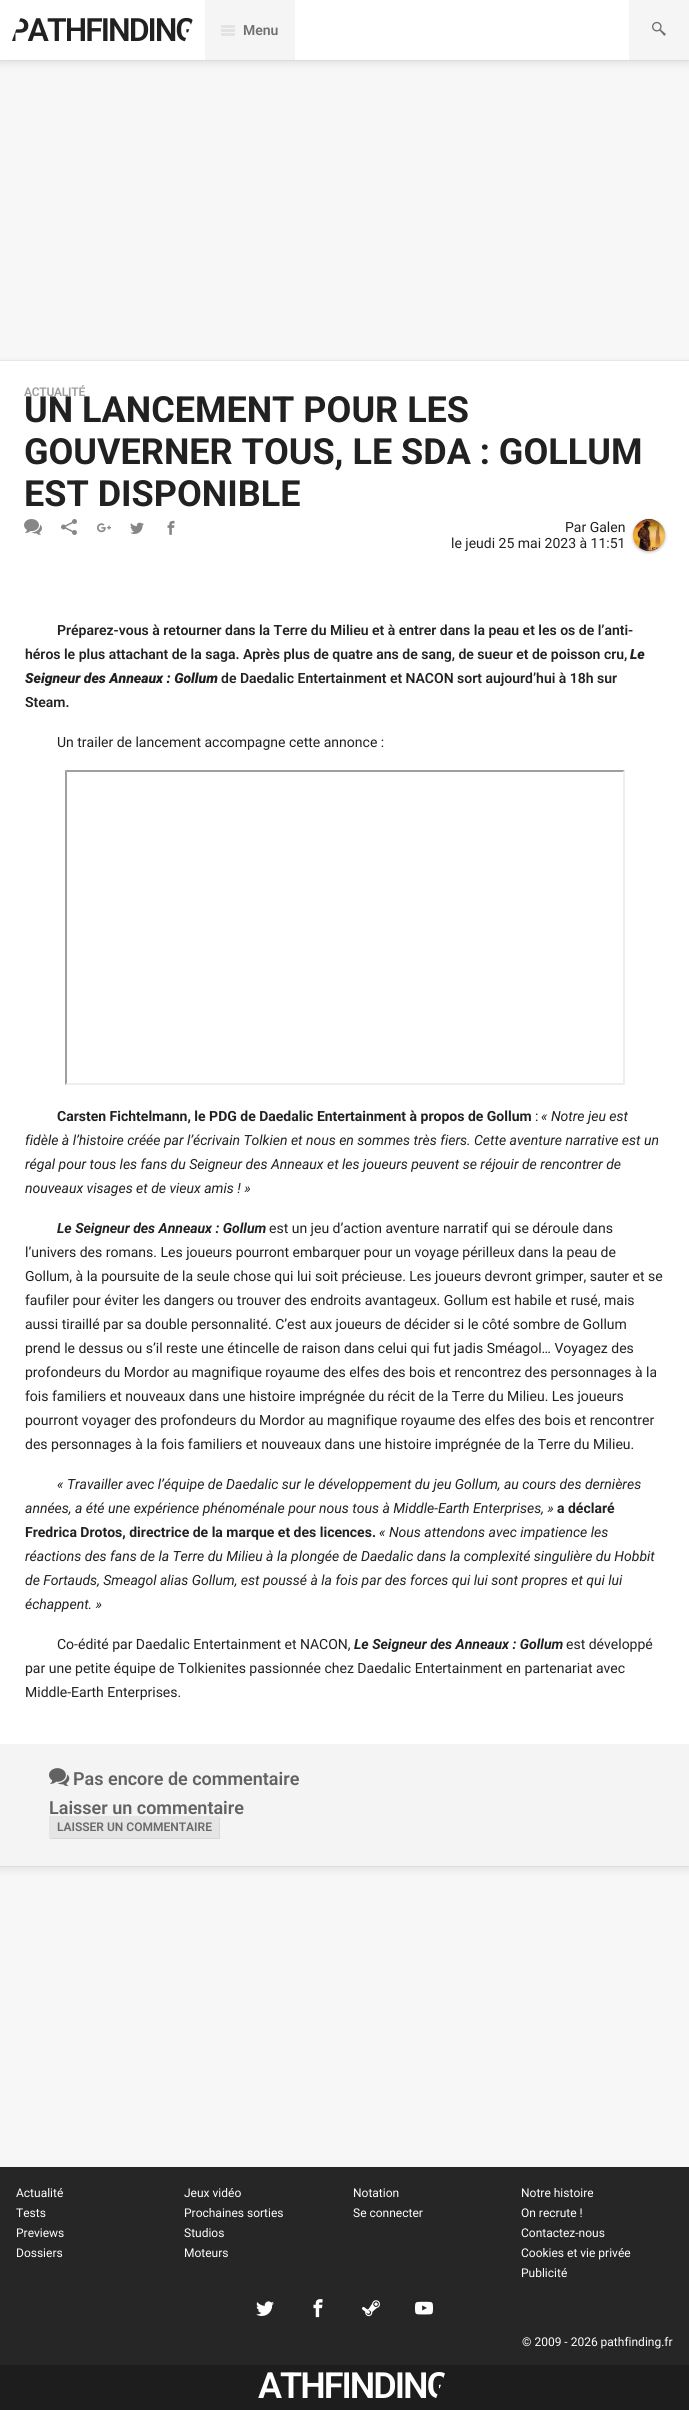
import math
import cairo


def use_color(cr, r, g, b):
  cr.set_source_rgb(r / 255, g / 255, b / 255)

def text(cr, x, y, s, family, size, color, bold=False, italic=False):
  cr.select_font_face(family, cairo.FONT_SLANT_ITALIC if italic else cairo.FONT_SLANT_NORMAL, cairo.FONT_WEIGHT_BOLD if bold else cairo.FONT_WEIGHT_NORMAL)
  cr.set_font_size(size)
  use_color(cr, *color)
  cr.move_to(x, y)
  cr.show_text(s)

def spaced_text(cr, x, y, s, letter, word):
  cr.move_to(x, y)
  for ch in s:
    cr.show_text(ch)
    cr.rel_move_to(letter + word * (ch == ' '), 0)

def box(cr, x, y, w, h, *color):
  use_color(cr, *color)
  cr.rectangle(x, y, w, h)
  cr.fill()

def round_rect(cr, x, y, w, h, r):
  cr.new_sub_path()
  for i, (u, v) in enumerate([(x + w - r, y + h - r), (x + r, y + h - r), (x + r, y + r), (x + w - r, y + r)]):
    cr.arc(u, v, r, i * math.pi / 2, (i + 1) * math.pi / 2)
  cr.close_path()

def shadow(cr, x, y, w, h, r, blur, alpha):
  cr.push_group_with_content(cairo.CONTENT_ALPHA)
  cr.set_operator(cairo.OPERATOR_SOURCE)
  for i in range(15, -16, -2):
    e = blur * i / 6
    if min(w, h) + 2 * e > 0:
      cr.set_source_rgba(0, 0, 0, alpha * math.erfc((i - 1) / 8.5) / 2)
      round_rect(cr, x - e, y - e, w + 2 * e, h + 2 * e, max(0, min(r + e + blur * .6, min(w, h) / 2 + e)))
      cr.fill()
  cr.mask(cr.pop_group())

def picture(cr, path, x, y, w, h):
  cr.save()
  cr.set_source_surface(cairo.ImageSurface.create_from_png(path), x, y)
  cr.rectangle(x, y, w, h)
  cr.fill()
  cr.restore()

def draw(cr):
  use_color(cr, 247, 247, 247)
  cr.paint()
  cr.rectangle(-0.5, -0.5, 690, 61)
  use_color(cr, 237, 237, 237)
  cr.set_line_width(1)
  cr.stroke()
  use_color(cr, 0, 0, 0)
  shadow(cr, 0, 3, 689, 60, 0, 4.5, 0.1)
  box(cr, 0, 0, 629, 60, 255, 255, 255)
  box(cr, 205, 0, 90, 60, 245, 245, 245)
  box(cr, 221, 25, 14, 3, 227, 227, 227)
  box(cr, 221, 29, 14, 3, 227, 227, 227)
  box(cr, 221, 33, 14, 3, 227, 227, 227)
  box(cr, 629, 0, 60, 60, 245, 245, 245)
  picture(cr, "img_01.png", 652, 21, 14, 15)
  cr.rectangle(-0.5, 360.5, 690, 1506)
  use_color(cr, 237, 237, 237)
  cr.stroke()
  use_color(cr, 0, 0, 0)
  shadow(cr, 0, 364, 689, 1505, 0, 4.5, 0.1)
  box(cr, 0, 361, 689, 1383, 255, 255, 255)
  picture(cr, "img_02.png", 24, 519, 18, 16)
  picture(cr, "img_03.png", 61, 519, 16, 16)
  picture(cr, "img_04.png", 97, 523, 14, 10)
  picture(cr, "img_05.png", 130, 522, 14, 12)
  picture(cr, "img_06.png", 167, 520, 8, 15)
  use_color(cr, 0, 0, 0)
  shadow(cr, 633, 520, 32, 32, 16, 1.5, 0.3)
  picture(cr, "img_07.png", 633, 519, 32, 32)
  use_color(cr, 159, 159, 159)
  cr.new_path()
  cr.move_to(65, 770)
  cr.line_to(625, 770)
  cr.line_to(623, 772)
  cr.line_to(67, 772)
  cr.close_path()
  cr.fill()
  use_color(cr, 238, 238, 238)
  cr.new_path()
  cr.move_to(625, 770)
  cr.line_to(625, 1085)
  cr.line_to(623, 1083)
  cr.line_to(623, 772)
  cr.close_path()
  cr.fill()
  cr.new_path()
  cr.move_to(625, 1085)
  cr.line_to(65, 1085)
  cr.line_to(67, 1083)
  cr.line_to(623, 1083)
  cr.close_path()
  cr.fill()
  use_color(cr, 159, 159, 159)
  cr.new_path()
  cr.move_to(65, 1085)
  cr.line_to(65, 770)
  cr.line_to(67, 772)
  cr.line_to(67, 1083)
  cr.close_path()
  cr.fill()
  box(cr, 0, 1744, 689, 122, 244, 244, 244)
  picture(cr, "img_08.png", 49, 1768, 21, 19)
  use_color(cr, 215, 215, 215)
  cr.new_path()
  cr.move_to(50, 1838)
  cr.line_to(50, 1839)
  cr.line_to(220, 1839)
  cr.line_to(220, 1817)
  cr.line_to(219, 1817)
  cr.line_to(219, 1838)
  cr.close_path()
  cr.fill()
  box(cr, 49, 1816, 170, 22, 229, 229, 229)
  box(cr, 0, 2167, 689, 198, 38, 38, 38)
  picture(cr, "img_09.png", 256, 2301, 18, 15)
  picture(cr, "img_10.png", 313, 2299, 10, 19)
  picture(cr, "img_11.png", 362, 2300, 18, 17)
  picture(cr, "img_12.png", 415, 2301, 18, 14)
  box(cr, 0, 2365, 689, 45, 29, 29, 29)
  cr.save()
  cr.new_path()
  cr.move_to(27, 0)
  cr.line_to(200, 0)
  cr.line_to(178, 60)
  cr.line_to(5, 60)
  cr.close_path()
  cr.clip()
  cr.select_font_face("Roboto SemiBold")
  cr.set_font_size(32)
  use_color(cr, 33, 33, 33)
  spaced_text(cr, 9, 41, "PATHFINDING", -2, 0)
  cr.restore()
  text(cr, 243, 35, "Menu", "Roboto SemiBold", 14, (113, 113, 113))
  cr.set_font_size(12)
  use_color(cr, 158, 158, 158)
  spaced_text(cr, 24, 396, "ACTUALITÉ", -0.25, 0)
  text(cr, 24, 422, "UN LANCEMENT POUR LES", "Roboto", 36, (33, 33, 33), bold=True)
  text(cr, 24, 464, "GOUVERNER TOUS, LE SDA : GOLLUM", "Roboto", 36, (33, 33, 33), bold=True)
  text(cr, 24, 506, "EST DISPONIBLE", "Roboto", 36, (33, 33, 33), bold=True)
  text(cr, 565, 532, "Par Galen", "Roboto", 14, (33, 33, 33))
  text(cr, 451, 548, "le jeudi 25 mai 2023 à 11:51", "Roboto", 14, (33, 33, 33))
  text(cr, 57, 635, "Préparez-vous à retourner dans la Terre du Milieu et à entrer dans la peau et les os de l’anti-", "Roboto SemiBold", 14, (33, 33, 33))
  text(cr, 25, 659, "héros le plus attachant de la saga. Après plus de quatre ans de sang, de sueur et de poisson cru,", "Roboto SemiBold", 14, (33, 33, 33))
  text(cr, 630, 659, "Le", "Roboto Black", 14, (33, 33, 33), italic=True)
  text(cr, 25, 683, "Seigneur des Anneaux : Gollum", "Roboto Black", 14, (33, 33, 33), italic=True)
  text(cr, 221, 683, "de Daedalic Entertainment et NACON sort aujourd’hui à 18h sur", "Roboto SemiBold", 14, (33, 33, 33))
  text(cr, 25, 707, "Steam.", "Roboto SemiBold", 14, (33, 33, 33))
  text(cr, 57, 747, "Un trailer de lancement accompagne cette annonce :", "Roboto", 14, (33, 33, 33))
  text(cr, 57, 1121, "Carsten Fichtelmann, le PDG de Daedalic Entertainment à propos de Gollum", "Roboto", 14, (33, 33, 33), bold=True)
  text(cr, 535, 1121, ":", "Roboto", 14, (33, 33, 33))
  text(cr, 541, 1121, "« Notre jeu est", "Roboto", 14, (33, 33, 33), italic=True)
  text(cr, 25, 1145, "fidèle à l’histoire créée par l’écrivain Tolkien et nous en sommes très fiers. Cette aventure narrative est un", "Roboto", 14, (33, 33, 33), italic=True)
  text(cr, 25, 1169, "régal pour tous les fans du Seigneur des Anneaux et les joueurs peuvent se réjouir de rencontrer de", "Roboto", 14, (33, 33, 33), italic=True)
  text(cr, 25, 1193, "nouveaux visages et de vieux amis ! »", "Roboto", 14, (33, 33, 33), italic=True)
  text(cr, 57, 1233, "Le Seigneur des Anneaux : Gollum", "Roboto", 14, (33, 33, 33), bold=True, italic=True)
  text(cr, 269, 1233, "est un jeu d’action aventure narratif qui se déroule dans", "Roboto", 14, (33, 33, 33))
  text(cr, 25, 1257, "l’univers des romans. Les joueurs pourront embarquer pour un voyage périlleux dans la peau de", "Roboto", 14, (33, 33, 33))
  text(cr, 25, 1281, "Gollum, à la poursuite de la seule chose qui lui soit précieuse. Les joueurs devront grimper, sauter et se", "Roboto", 14, (33, 33, 33))
  text(cr, 25, 1305, "faufiler pour éviter les dangers ou trouver des endroits avantageux. Gollum est habile et rusé, mais", "Roboto", 14, (33, 33, 33))
  text(cr, 25, 1329, "aussi tiraillé par sa double personnalité. C’est aux joueurs de décider si le côté sombre de Gollum", "Roboto", 14, (33, 33, 33))
  text(cr, 25, 1353, "prend le dessus ou s’il reste une étincelle de raison dans celui qui fut jadis Sméagol… Voyagez des", "Roboto", 14, (33, 33, 33))
  text(cr, 25, 1377, "profondeurs du Mordor au magnifique royaume des elfes des bois et rencontrez des personnages à la", "Roboto", 14, (33, 33, 33))
  text(cr, 25, 1401, "fois familiers et nouveaux dans une histoire imprégnée du récit de la Terre du Milieu. Les joueurs", "Roboto", 14, (33, 33, 33))
  text(cr, 25, 1425, "pourront voyager des profondeurs du Mordor au magnifique royaume des elfes des bois et rencontrer", "Roboto", 14, (33, 33, 33))
  text(cr, 25, 1449, "des personnages à la fois familiers et nouveaux dans une histoire imprégnée de la Terre du Milieu.", "Roboto", 14, (33, 33, 33))
  text(cr, 57, 1489, "« Travailler avec l’équipe de Daedalic sur le développement du jeu Gollum, au cours des dernières", "Roboto", 14, (33, 33, 33), italic=True)
  text(cr, 25, 1513, "années, a été une expérience phénoménale pour nous tous à Middle-Earth Enterprises, »", "Roboto", 14, (33, 33, 33), italic=True)
  text(cr, 557, 1513, "a déclaré", "Roboto", 14, (33, 33, 33), bold=True)
  text(cr, 25, 1537, "Fredrica Drotos, directrice de la marque et des licences.", "Roboto", 14, (33, 33, 33), bold=True)
  text(cr, 379, 1537, "« Nous attendons avec impatience les", "Roboto", 14, (33, 33, 33), italic=True)
  text(cr, 25, 1561, "réactions des fans de la Terre du Milieu à la plongée de Daedalic dans la complexité singulière du Hobbit", "Roboto", 14, (33, 33, 33), italic=True)
  text(cr, 25, 1585, "de Fortauds, Smeagol alias Gollum, est poussé à la fois par des forces qui lui sont propres et qui lui", "Roboto", 14, (33, 33, 33), italic=True)
  text(cr, 25, 1609, "échappent. »", "Roboto", 14, (33, 33, 33), italic=True)
  text(cr, 57, 1649, "Co-édité par Daedalic Entertainment et NACON,", "Roboto", 14, (33, 33, 33))
  text(cr, 354, 1649, "Le Seigneur des Anneaux : Gollum", "Roboto", 14, (33, 33, 33), bold=True, italic=True)
  text(cr, 566, 1649, "est développé", "Roboto", 14, (33, 33, 33))
  text(cr, 25, 1673, "par une petite équipe de Tolkienites passionnée chez Daedalic Entertainment en partenariat avec", "Roboto", 14, (33, 33, 33))
  text(cr, 25, 1697, "Middle-Earth Enterprises.", "Roboto", 14, (33, 33, 33))
  text(cr, 73, 1785, "Pas encore de commentaire", "Roboto SemiBold", 18, (98, 98, 98))
  text(cr, 49, 1814, "Laisser un commentaire", "Roboto SemiBold", 18, (98, 98, 98))
  text(cr, 57, 1831, "LAISSER UN COMMENTAIRE", "Roboto SemiBold", 12, (105, 105, 105))
  text(cr, 16, 2197, "Actualité", "Roboto", 12, (255, 255, 255))
  text(cr, 16, 2217, "Tests", "Roboto", 12, (255, 255, 255))
  text(cr, 16, 2237, "Previews", "Roboto", 12, (255, 255, 255))
  text(cr, 16, 2257, "Dossiers", "Roboto", 12, (255, 255, 255))
  text(cr, 184, 2197, "Jeux vidéo", "Roboto", 12, (255, 255, 255))
  text(cr, 184, 2217, "Prochaines sorties", "Roboto", 12, (255, 255, 255))
  text(cr, 184, 2237, "Studios", "Roboto", 12, (255, 255, 255))
  text(cr, 184, 2257, "Moteurs", "Roboto", 12, (255, 255, 255))
  text(cr, 353, 2197, "Notation", "Roboto", 12, (255, 255, 255))
  text(cr, 353, 2217, "Se connecter", "Roboto", 12, (255, 255, 255))
  text(cr, 521, 2197, "Notre histoire", "Roboto", 12, (255, 255, 255))
  text(cr, 521, 2217, "On recrute !", "Roboto", 12, (255, 255, 255))
  text(cr, 521, 2237, "Contactez-nous", "Roboto", 12, (255, 255, 255))
  text(cr, 521, 2257, "Cookies et vie privée", "Roboto", 12, (255, 255, 255))
  text(cr, 521, 2277, "Publicité", "Roboto", 12, (255, 255, 255))
  text(cr, 522, 2346, "© 2009 - 2026 pathfinding.fr", "Roboto", 12, (255, 255, 255))
  cr.save()
  cr.new_path()
  cr.move_to(256, 2365)
  cr.line_to(448, 2365)
  cr.line_to(433, 2407)
  cr.line_to(241, 2407)
  cr.close_path()
  cr.clip()
  cr.select_font_face("Roboto SemiBold")
  cr.set_font_size(36)
  spaced_text(cr, 258, 2398, "ATHFINDING", -2, 0)
  cr.restore()


surface = cairo.ImageSurface(cairo.FORMAT_RGB24, 689, 2410)
cr = cairo.Context(surface)
options = cairo.FontOptions()
options.set_hint_metrics(cairo.HINT_METRICS_OFF)
options.set_hint_style(cairo.HINT_STYLE_NONE)
cr.set_font_options(options)
cr.set_miter_limit(4)
draw(cr)
surface.write_to_png("out.png")
